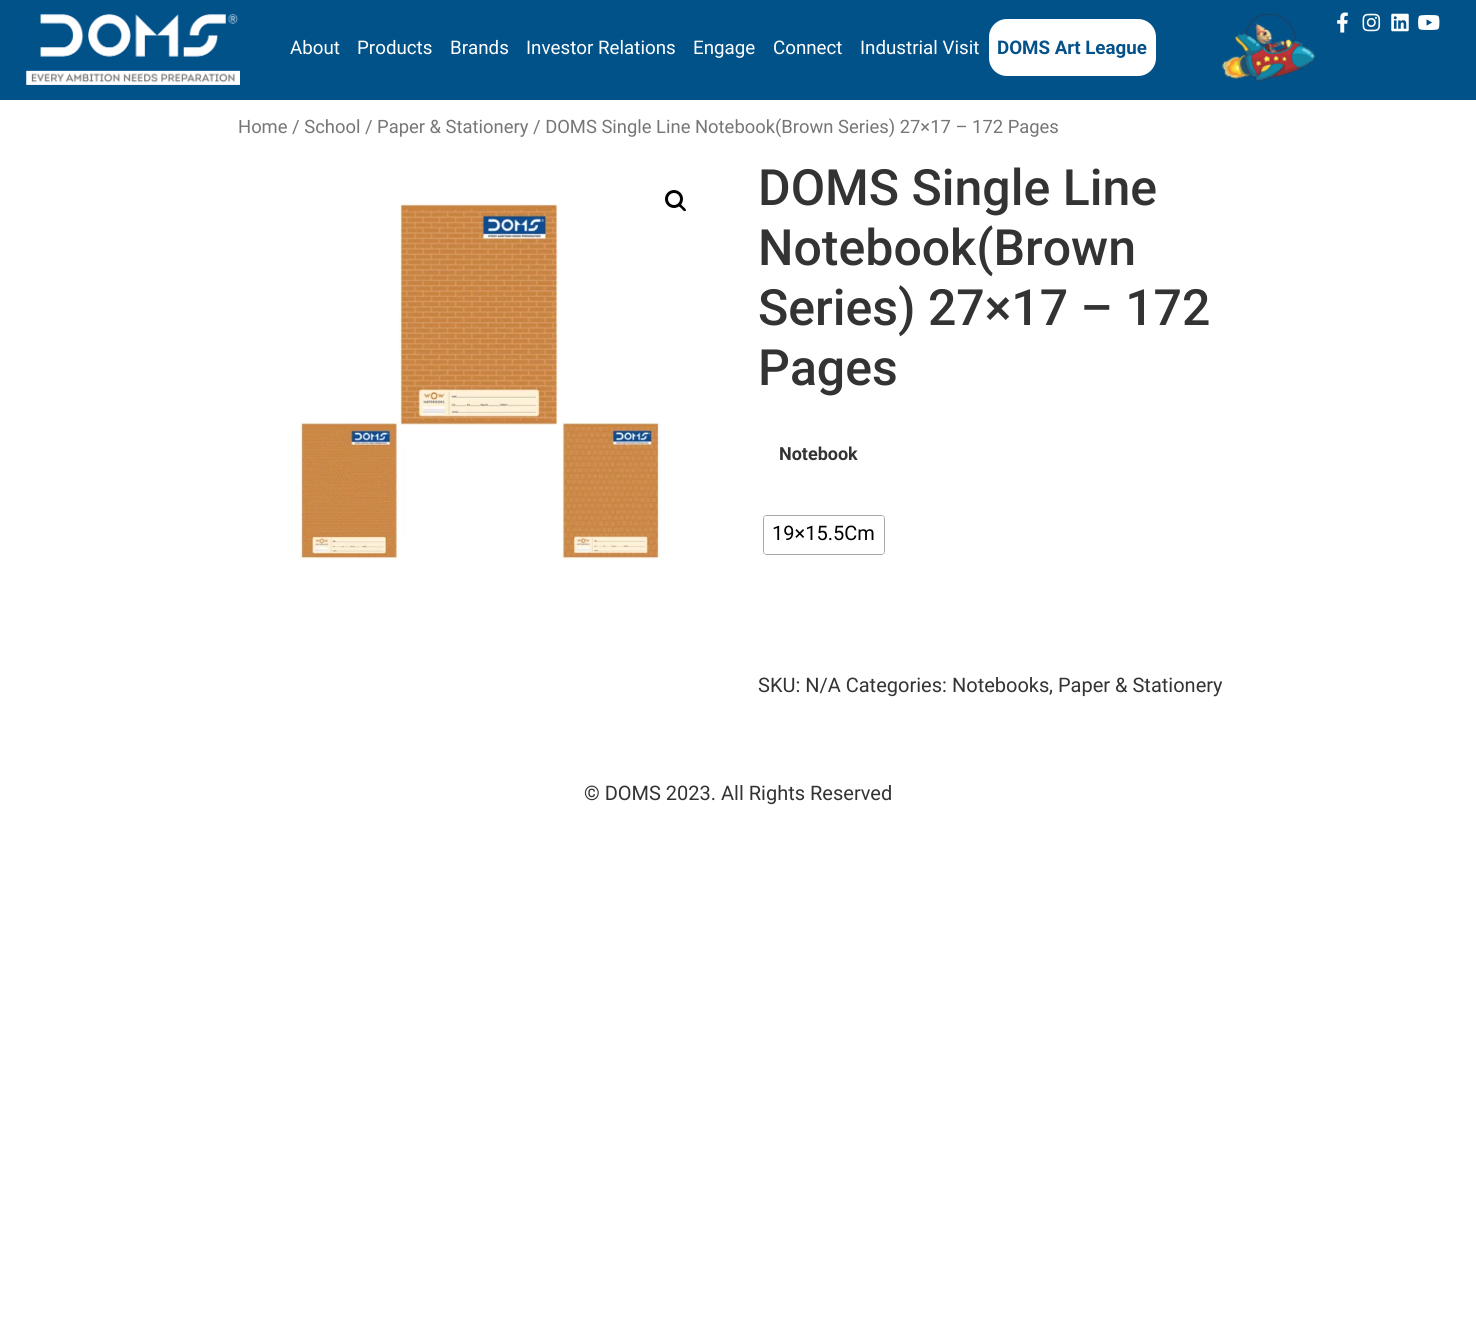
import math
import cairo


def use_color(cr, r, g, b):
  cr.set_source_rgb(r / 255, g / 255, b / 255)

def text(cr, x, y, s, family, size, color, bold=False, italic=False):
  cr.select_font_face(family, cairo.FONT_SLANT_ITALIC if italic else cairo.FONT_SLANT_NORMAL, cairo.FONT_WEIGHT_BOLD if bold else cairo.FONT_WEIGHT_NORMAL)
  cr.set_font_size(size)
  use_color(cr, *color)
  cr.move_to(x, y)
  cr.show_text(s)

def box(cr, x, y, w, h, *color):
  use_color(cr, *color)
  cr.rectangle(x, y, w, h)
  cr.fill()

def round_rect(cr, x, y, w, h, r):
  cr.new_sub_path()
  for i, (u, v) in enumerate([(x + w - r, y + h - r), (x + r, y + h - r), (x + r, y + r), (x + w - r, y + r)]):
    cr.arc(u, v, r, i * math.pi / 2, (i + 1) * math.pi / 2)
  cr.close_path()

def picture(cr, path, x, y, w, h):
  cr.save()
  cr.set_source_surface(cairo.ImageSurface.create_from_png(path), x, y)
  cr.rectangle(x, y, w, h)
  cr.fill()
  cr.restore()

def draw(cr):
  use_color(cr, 255, 255, 255)
  cr.paint()
  box(cr, 0, 0, 1476, 100, 2, 82, 138)
  picture(cr, "img_01.png", 26, 14, 214, 71)
  use_color(cr, 255, 255, 255)
  round_rect(cr, 989, 19, 167, 57, 18)
  cr.fill()
  picture(cr, "img_02.png", 1222, 13, 94, 69)
  picture(cr, "img_03.png", 1337, 12, 11, 21)
  picture(cr, "img_04.png", 1362, 13, 19, 19)
  picture(cr, "img_05.png", 1391, 13, 18, 19)
  picture(cr, "img_06.png", 1418, 15, 22, 15)
  picture(cr, "img_07.png", 296, 203, 366, 357)
  cr.arc(674, 199, 7.5, 0, 2 * math.pi)
  use_color(cr, 0, 0, 0)
  cr.set_line_width(3)
  cr.stroke()
  cr.new_path()
  cr.move_to(678.5, 203.5)
  cr.curve_to(680, 202.5, 682, 205.5, 683, 206.5)
  cr.curve_to(683.5, 207, 687, 209.5, 685.5, 211)
  cr.curve_to(684, 212, 682, 209, 681, 208)
  cr.curve_to(680, 207.5, 677, 205, 678.5, 203.5)
  cr.close_path()
  cr.fill()
  round_rect(cr, 763.5, 515.5, 121, 39, 3.5)
  use_color(cr, 168, 168, 168)
  cr.set_line_width(1)
  cr.stroke()
  use_color(cr, 255, 255, 255)
  round_rect(cr, 764, 516, 120, 38, 2.5)
  cr.fill()
  text(cr, 290, 54, "About", "Roboto", 18.75, (255, 255, 255))
  text(cr, 357, 54, "Products", "Roboto", 18.75, (255, 255, 255))
  text(cr, 450, 54, "Brands", "Roboto", 18.75, (255, 255, 255))
  text(cr, 526, 54, "Investor Relations", "Roboto", 18.75, (255, 255, 255))
  text(cr, 693, 54, "Engage", "Roboto", 18.75, (255, 255, 255))
  text(cr, 773, 54, "Connect", "Roboto", 18.75, (255, 255, 255))
  text(cr, 860, 54, "Industrial Visit", "Roboto", 18.75, (255, 255, 255))
  text(cr, 997, 54, "DOMS Art League", "Roboto", 18.75, (5, 82, 138), bold=True)
  text(cr, 238, 133, "Home / School / Paper & Stationery / DOMS Single Line Notebook(Brown Series) 27×17 – 172 Pages", "Roboto", 18.4, (118, 118, 118))
  text(cr, 758, 205, "DOMS Single Line", "Roboto Medium", 50, (51, 51, 51))
  text(cr, 758, 265, "Notebook(Brown", "Roboto Medium", 50, (51, 51, 51))
  text(cr, 758, 325, "Series) 27×17 – 172", "Roboto Medium", 50, (51, 51, 51))
  text(cr, 758, 385, "Pages", "Roboto Medium", 50, (51, 51, 51))
  text(cr, 779, 460, "Notebook", "Roboto", 18, (51, 51, 51), bold=True)
  text(cr, 772, 540, "19×15.5Cm", "Roboto", 20, (0, 0, 0))
  text(cr, 758, 692, "SKU: N/A Categories:", "Roboto", 20, (51, 51, 51))
  text(cr, 952, 692, "Notebooks", "Roboto", 20, (51, 51, 51))
  text(cr, 1049, 692, ",", "Roboto", 20, (51, 51, 51))
  text(cr, 1058, 692, "Paper & Stationery", "Roboto", 20, (51, 51, 51))
  text(cr, 584, 800, "© DOMS 2023. All Rights Reserved", "Roboto", 20, (51, 51, 51))


surface = cairo.ImageSurface(cairo.FORMAT_RGB24, 1476, 1318)
cr = cairo.Context(surface)
options = cairo.FontOptions()
options.set_hint_metrics(cairo.HINT_METRICS_OFF)
options.set_hint_style(cairo.HINT_STYLE_NONE)
cr.set_font_options(options)
cr.set_miter_limit(4)
draw(cr)
surface.write_to_png("out.png")
